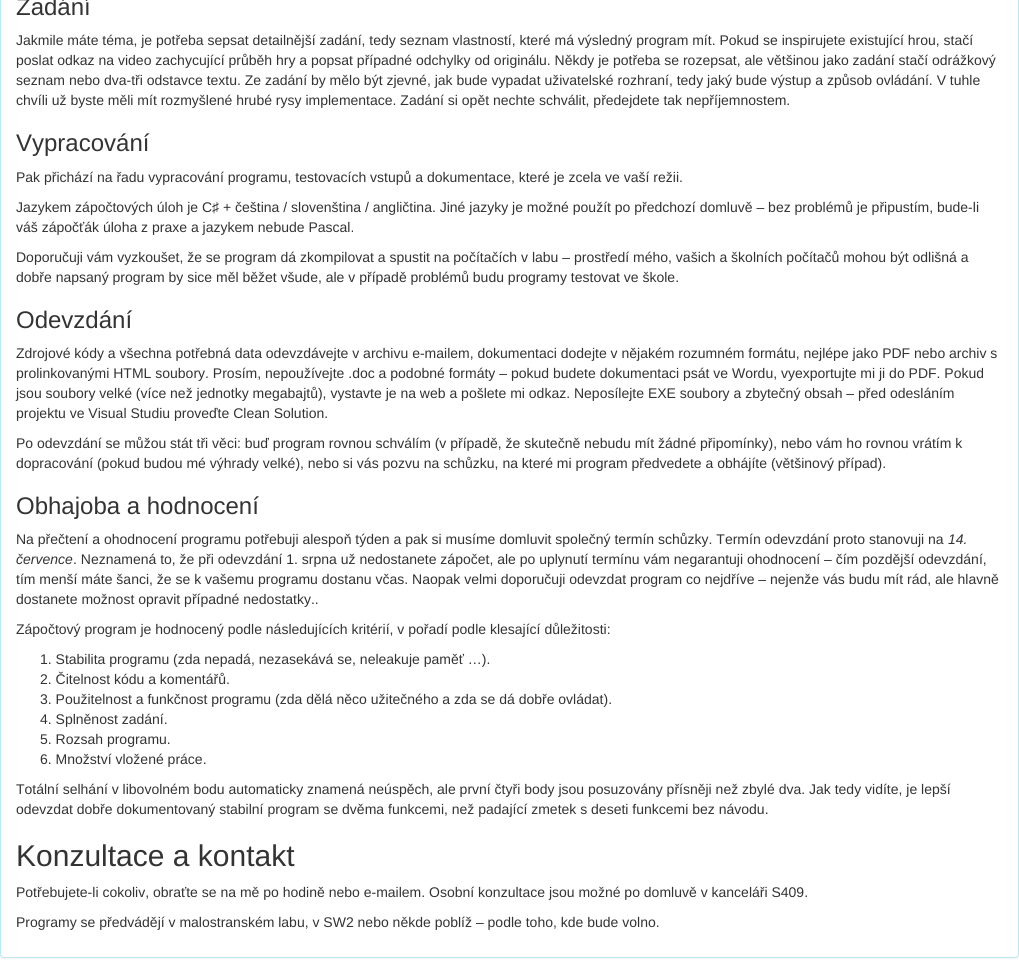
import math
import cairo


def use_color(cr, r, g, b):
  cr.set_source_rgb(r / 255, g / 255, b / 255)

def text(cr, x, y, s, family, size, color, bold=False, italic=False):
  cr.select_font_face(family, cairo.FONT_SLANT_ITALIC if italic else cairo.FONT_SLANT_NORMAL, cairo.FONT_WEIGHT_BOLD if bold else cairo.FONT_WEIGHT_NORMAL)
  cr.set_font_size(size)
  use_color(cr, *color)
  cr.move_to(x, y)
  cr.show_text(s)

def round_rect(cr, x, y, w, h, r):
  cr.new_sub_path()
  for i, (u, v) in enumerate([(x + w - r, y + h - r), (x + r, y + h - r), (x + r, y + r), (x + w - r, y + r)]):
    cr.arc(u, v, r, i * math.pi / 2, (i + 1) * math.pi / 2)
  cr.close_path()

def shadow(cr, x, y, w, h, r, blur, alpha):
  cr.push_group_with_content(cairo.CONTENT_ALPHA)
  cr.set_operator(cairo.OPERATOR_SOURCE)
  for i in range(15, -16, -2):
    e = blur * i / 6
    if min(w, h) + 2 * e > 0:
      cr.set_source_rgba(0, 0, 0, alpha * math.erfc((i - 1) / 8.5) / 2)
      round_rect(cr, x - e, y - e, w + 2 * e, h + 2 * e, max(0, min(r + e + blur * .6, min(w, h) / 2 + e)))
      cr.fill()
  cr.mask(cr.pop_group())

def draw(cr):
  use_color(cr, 255, 255, 255)
  cr.paint()
  use_color(cr, 0, 0, 0)
  shadow(cr, 0, -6, 1019, 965, 4, 0.5, 0.05)
  use_color(cr, 255, 255, 255)
  round_rect(cr, 0.5, -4.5, 1018, 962, 3.5)
  cr.fill_preserve()
  use_color(cr, 188, 232, 241)
  cr.set_line_width(1)
  cr.stroke()
  text(cr, 16, 15, "Zadání", "Liberation Sans", 24, (51, 51, 51))
  text(cr, 16, 45, "Jakmile máte téma, je potřeba sepsat detailnější zadání, tedy seznam vlastností, které má výsledný program mít. Pokud se inspirujete existující hrou, stačí", "Liberation Sans", 14, (51, 51, 51))
  text(cr, 16, 65, "poslat odkaz na video zachycující průběh hry a popsat případné odchylky od originálu. Někdy je potřeba se rozepsat, ale většinou jako zadání stačí odrážkový", "Liberation Sans", 14, (51, 51, 51))
  text(cr, 16, 85, "seznam nebo dva-tři odstavce textu. Ze zadání by mělo být zjevné, jak bude vypadat uživatelské rozhraní, tedy jaký bude výstup a způsob ovládání. V tuhle", "Liberation Sans", 14, (51, 51, 51))
  text(cr, 16, 105, "chvíli už byste měli mít rozmyšlené hrubé rysy implementace. Zadání si opět nechte schválit, předejdete tak nepříjemnostem.", "Liberation Sans", 14, (51, 51, 51))
  text(cr, 16, 151, "Vypracování", "Liberation Sans", 24, (51, 51, 51))
  text(cr, 16, 182, "Pak přichází na řadu vypracování programu, testovacích vstupů a dokumentace, které je zcela ve vaší režii.", "Liberation Sans", 14, (51, 51, 51))
  text(cr, 16, 212, "Jazykem zápočtových úloh je C♯ + čeština / slovenština / angličtina. Jiné jazyky je možné použít po předchozí domluvě – bez problémů je připustím, bude-li", "Liberation Sans", 14, (51, 51, 51))
  text(cr, 16, 232, "váš zápočťák úloha z praxe a jazykem nebude Pascal.", "Liberation Sans", 14, (51, 51, 51))
  text(cr, 16, 262, "Doporučuji vám vyzkoušet, že se program dá zkompilovat a spustit na počítačích v labu – prostředí mého, vašich a školních počítačů mohou být odlišná a", "Liberation Sans", 14, (51, 51, 51))
  text(cr, 16, 282, "dobře napsaný program by sice měl běžet všude, ale v případě problémů budu programy testovat ve škole.", "Liberation Sans", 14, (51, 51, 51))
  text(cr, 16, 328, "Odevzdání", "Liberation Sans", 24, (51, 51, 51))
  text(cr, 16, 358, "Zdrojové kódy a všechna potřebná data odevzdávejte v archivu e-mailem, dokumentaci dodejte v nějakém rozumném formátu, nejlépe jako PDF nebo archiv s", "Liberation Sans", 14, (51, 51, 51))
  text(cr, 16, 378, "prolinkovanými HTML soubory. Prosím, nepoužívejte .doc a podobné formáty – pokud budete dokumentaci psát ve Wordu, vyexportujte mi ji do PDF. Pokud", "Liberation Sans", 14, (51, 51, 51))
  text(cr, 16, 398, "jsou soubory velké (více než jednotky megabajtů), vystavte je na web a pošlete mi odkaz. Neposílejte EXE soubory a zbytečný obsah – před odesláním", "Liberation Sans", 14, (51, 51, 51))
  text(cr, 16, 418, "projektu ve Visual Studiu proveďte Clean Solution.", "Liberation Sans", 14, (51, 51, 51))
  text(cr, 16, 448, "Po odevzdání se můžou stát tři věci: buď program rovnou schválím (v případě, že skutečně nebudu mít žádné připomínky), nebo vám ho rovnou vrátím k", "Liberation Sans", 14, (51, 51, 51))
  text(cr, 16, 468, "dopracování (pokud budou mé výhrady velké), nebo si vás pozvu na schůzku, na které mi program předvedete a obhájíte (většinový případ).", "Liberation Sans", 14, (51, 51, 51))
  text(cr, 16, 514, "Obhajoba a hodnocení", "Liberation Sans", 24, (51, 51, 51))
  text(cr, 16, 544, "Na přečtení a ohodnocení programu potřebuji alespoň týden a pak si musíme domluvit společný termín schůzky. Termín odevzdání proto stanovuji na", "Liberation Sans", 14, (51, 51, 51))
  text(cr, 948, 544, "14.", "Liberation Sans", 14, (51, 51, 51), italic=True)
  text(cr, 16, 564, "července", "Liberation Sans", 14, (51, 51, 51), italic=True)
  text(cr, 73, 564, ". Neznamená to, že při odevzdání 1. srpna už nedostanete zápočet, ale po uplynutí termínu vám negarantuji ohodnocení – čím pozdější odevzdání,", "Liberation Sans", 14, (51, 51, 51))
  text(cr, 16, 584, "tím menší máte šanci, že se k vašemu programu dostanu včas. Naopak velmi doporučuji odevzdat program co nejdříve – nejenže vás budu mít rád, ale hlavně", "Liberation Sans", 14, (51, 51, 51))
  text(cr, 16, 604, "dostanete možnost opravit případné nedostatky..", "Liberation Sans", 14, (51, 51, 51))
  text(cr, 16, 634, "Zápočtový program je hodnocený podle následujících kritérií, v pořadí podle klesající důležitosti:", "Liberation Sans", 14, (51, 51, 51))
  text(cr, 40, 664, "1. Stabilita programu (zda nepadá, nezasekává se, neleakuje paměť …).", "Liberation Sans", 14, (51, 51, 51))
  text(cr, 40, 684, "2. Čitelnost kódu a komentářů.", "Liberation Sans", 14, (51, 51, 51))
  text(cr, 40, 704, "3. Použitelnost a funkčnost programu (zda dělá něco užitečného a zda se dá dobře ovládat).", "Liberation Sans", 14, (51, 51, 51))
  text(cr, 40, 724, "4. Splněnost zadání.", "Liberation Sans", 14, (51, 51, 51))
  text(cr, 40, 744, "5. Rozsah programu.", "Liberation Sans", 14, (51, 51, 51))
  text(cr, 40, 764, "6. Množství vložené práce.", "Liberation Sans", 14, (51, 51, 51))
  text(cr, 16, 794, "Totální selhání v libovolném bodu automaticky znamená neúspěch, ale první čtyři body jsou posuzovány přísněji než zbylé dva. Jak tedy vidíte, je lepší", "Liberation Sans", 14, (51, 51, 51))
  text(cr, 16, 814, "odevzdat dobře dokumentovaný stabilní program se dvěma funkcemi, než padající zmetek s deseti funkcemi bez návodu.", "Liberation Sans", 14, (51, 51, 51))
  text(cr, 16, 866, "Konzultace a kontakt", "Liberation Sans", 30, (51, 51, 51))
  text(cr, 16, 897, "Potřebujete-li cokoliv, obraťte se na mě po hodině nebo e-mailem. Osobní konzultace jsou možné po domluvě v kanceláři S409.", "Liberation Sans", 14, (51, 51, 51))
  text(cr, 16, 927, "Programy se předvádějí v malostranském labu, v SW2 nebo někde poblíž – podle toho, kde bude volno.", "Liberation Sans", 14, (51, 51, 51))


surface = cairo.ImageSurface(cairo.FORMAT_RGB24, 1019, 978)
cr = cairo.Context(surface)
options = cairo.FontOptions()
options.set_hint_metrics(cairo.HINT_METRICS_OFF)
options.set_hint_style(cairo.HINT_STYLE_NONE)
cr.set_font_options(options)
cr.set_miter_limit(4)
draw(cr)
surface.write_to_png("out.png")
